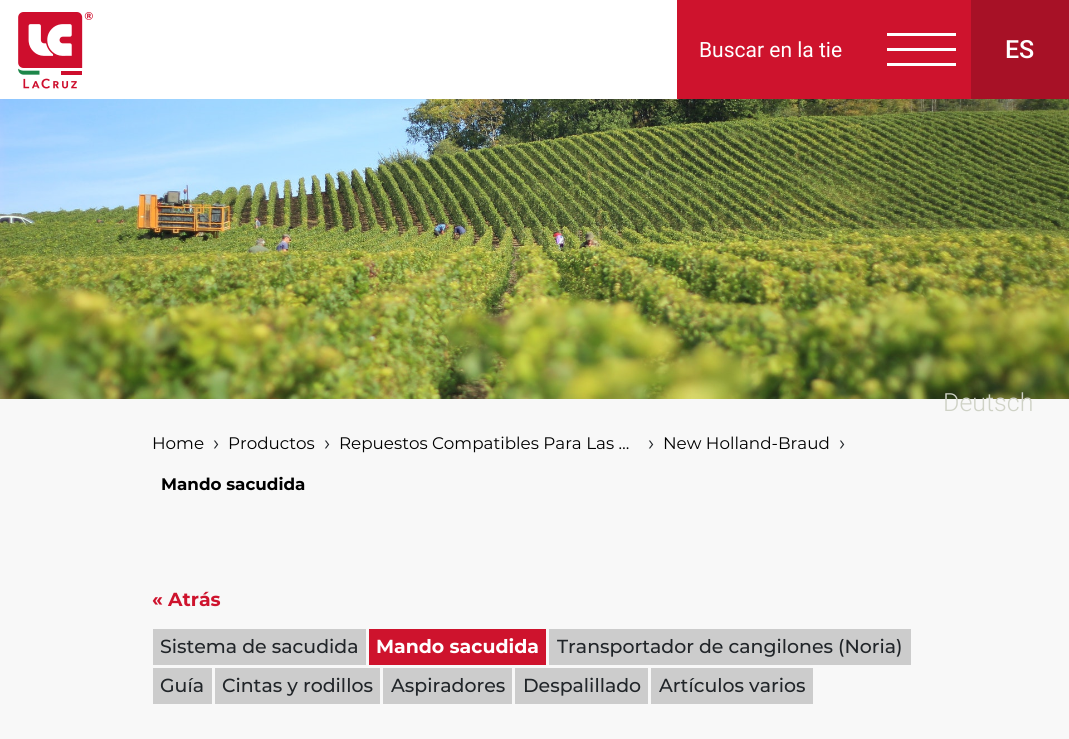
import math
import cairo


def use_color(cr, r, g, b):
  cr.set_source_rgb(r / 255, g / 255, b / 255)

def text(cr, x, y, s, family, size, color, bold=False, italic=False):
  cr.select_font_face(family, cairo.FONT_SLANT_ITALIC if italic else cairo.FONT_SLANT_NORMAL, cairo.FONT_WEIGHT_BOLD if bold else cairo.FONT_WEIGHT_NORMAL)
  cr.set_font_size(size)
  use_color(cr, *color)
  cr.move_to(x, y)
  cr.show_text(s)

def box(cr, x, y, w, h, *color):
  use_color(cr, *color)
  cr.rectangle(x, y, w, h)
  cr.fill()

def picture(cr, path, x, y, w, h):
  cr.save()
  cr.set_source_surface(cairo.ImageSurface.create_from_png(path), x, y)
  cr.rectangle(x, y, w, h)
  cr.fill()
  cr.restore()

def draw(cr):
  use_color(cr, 248, 248, 248)
  cr.paint()
  box(cr, 0, 0, 677, 99, 255, 255, 255)
  picture(cr, "img_01.png", 18, 12, 75, 77)
  box(cr, 677, 0, 294, 99, 206, 19, 45)
  box(cr, 887, 48, 69, 3, 255, 255, 255)
  box(cr, 887, 33, 69, 3, 255, 255, 255)
  box(cr, 887, 63, 69, 3, 255, 255, 255)
  box(cr, 971, 0, 98, 99, 167, 17, 38)
  picture(cr, "img_02.png", 0, 99, 1069, 300)
  box(cr, 153, 629, 213, 36, 204, 204, 204)
  box(cr, 369, 629, 177, 36, 206, 19, 45)
  box(cr, 549, 629, 362, 36, 204, 204, 204)
  box(cr, 153, 668, 59, 36, 204, 204, 204)
  box(cr, 215, 668, 165, 36, 204, 204, 204)
  box(cr, 383, 668, 129, 36, 204, 204, 204)
  box(cr, 515, 668, 133, 36, 204, 204, 204)
  box(cr, 651, 668, 162, 36, 204, 204, 204)
  text(cr, 699, 57, "Buscar en la tie", "Roboto", 21, (255, 255, 255))
  text(cr, 1005, 58, "ES", "Roboto Medium", 25, (255, 255, 255))
  text(cr, 943, 411, "Deutsch", "Roboto Light", 25, (207, 210, 198))
  text(cr, 152, 449, "Home", "Montserrat", 16.75, (0, 0, 0))
  text(cr, 213, 450, "›", "Montserrat", 21, (33, 37, 41))
  text(cr, 228, 449, "Productos", "Montserrat", 16.75, (0, 0, 0))
  text(cr, 324, 450, "›", "Montserrat", 21, (33, 37, 41))
  text(cr, 339, 449, "Repuestos Compatibles Para Las …", "Montserrat", 16.75, (0, 0, 0))
  text(cr, 648, 450, "›", "Montserrat", 21, (33, 37, 41))
  text(cr, 663, 449, "New Holland-Braud", "Montserrat", 16.75, (0, 0, 0))
  text(cr, 839, 450, "›", "Montserrat", 21, (33, 37, 41))
  text(cr, 161, 490, "Mando sacudida", "Montserrat", 16.75, (0, 0, 0), bold=True)
  text(cr, 152, 606, "« Atrás", "Montserrat", 18.9, (206, 19, 45), bold=True)
  text(cr, 160, 653, "Sistema de sacudida", "Montserrat Medium", 18.9, (33, 37, 41))
  text(cr, 376, 653, "Mando sacudida", "Montserrat", 18.9, (255, 255, 255), bold=True)
  text(cr, 557, 653, "Transportador de cangilones (Noria)", "Montserrat Medium", 18.9, (33, 37, 41))
  text(cr, 160, 692, "Guía", "Montserrat Medium", 18.9, (33, 37, 41))
  text(cr, 222, 692, "Cintas y rodillos", "Montserrat Medium", 18.9, (33, 37, 41))
  text(cr, 391, 692, "Aspiradores", "Montserrat Medium", 18.9, (33, 37, 41))
  text(cr, 523, 692, "Despalillado", "Montserrat Medium", 18.9, (33, 37, 41))
  text(cr, 659, 692, "Artículos varios", "Montserrat Medium", 18.9, (33, 37, 41))


surface = cairo.ImageSurface(cairo.FORMAT_RGB24, 1069, 739)
cr = cairo.Context(surface)
options = cairo.FontOptions()
options.set_hint_metrics(cairo.HINT_METRICS_OFF)
options.set_hint_style(cairo.HINT_STYLE_NONE)
cr.set_font_options(options)
cr.set_miter_limit(4)
draw(cr)
surface.write_to_png("out.png")
